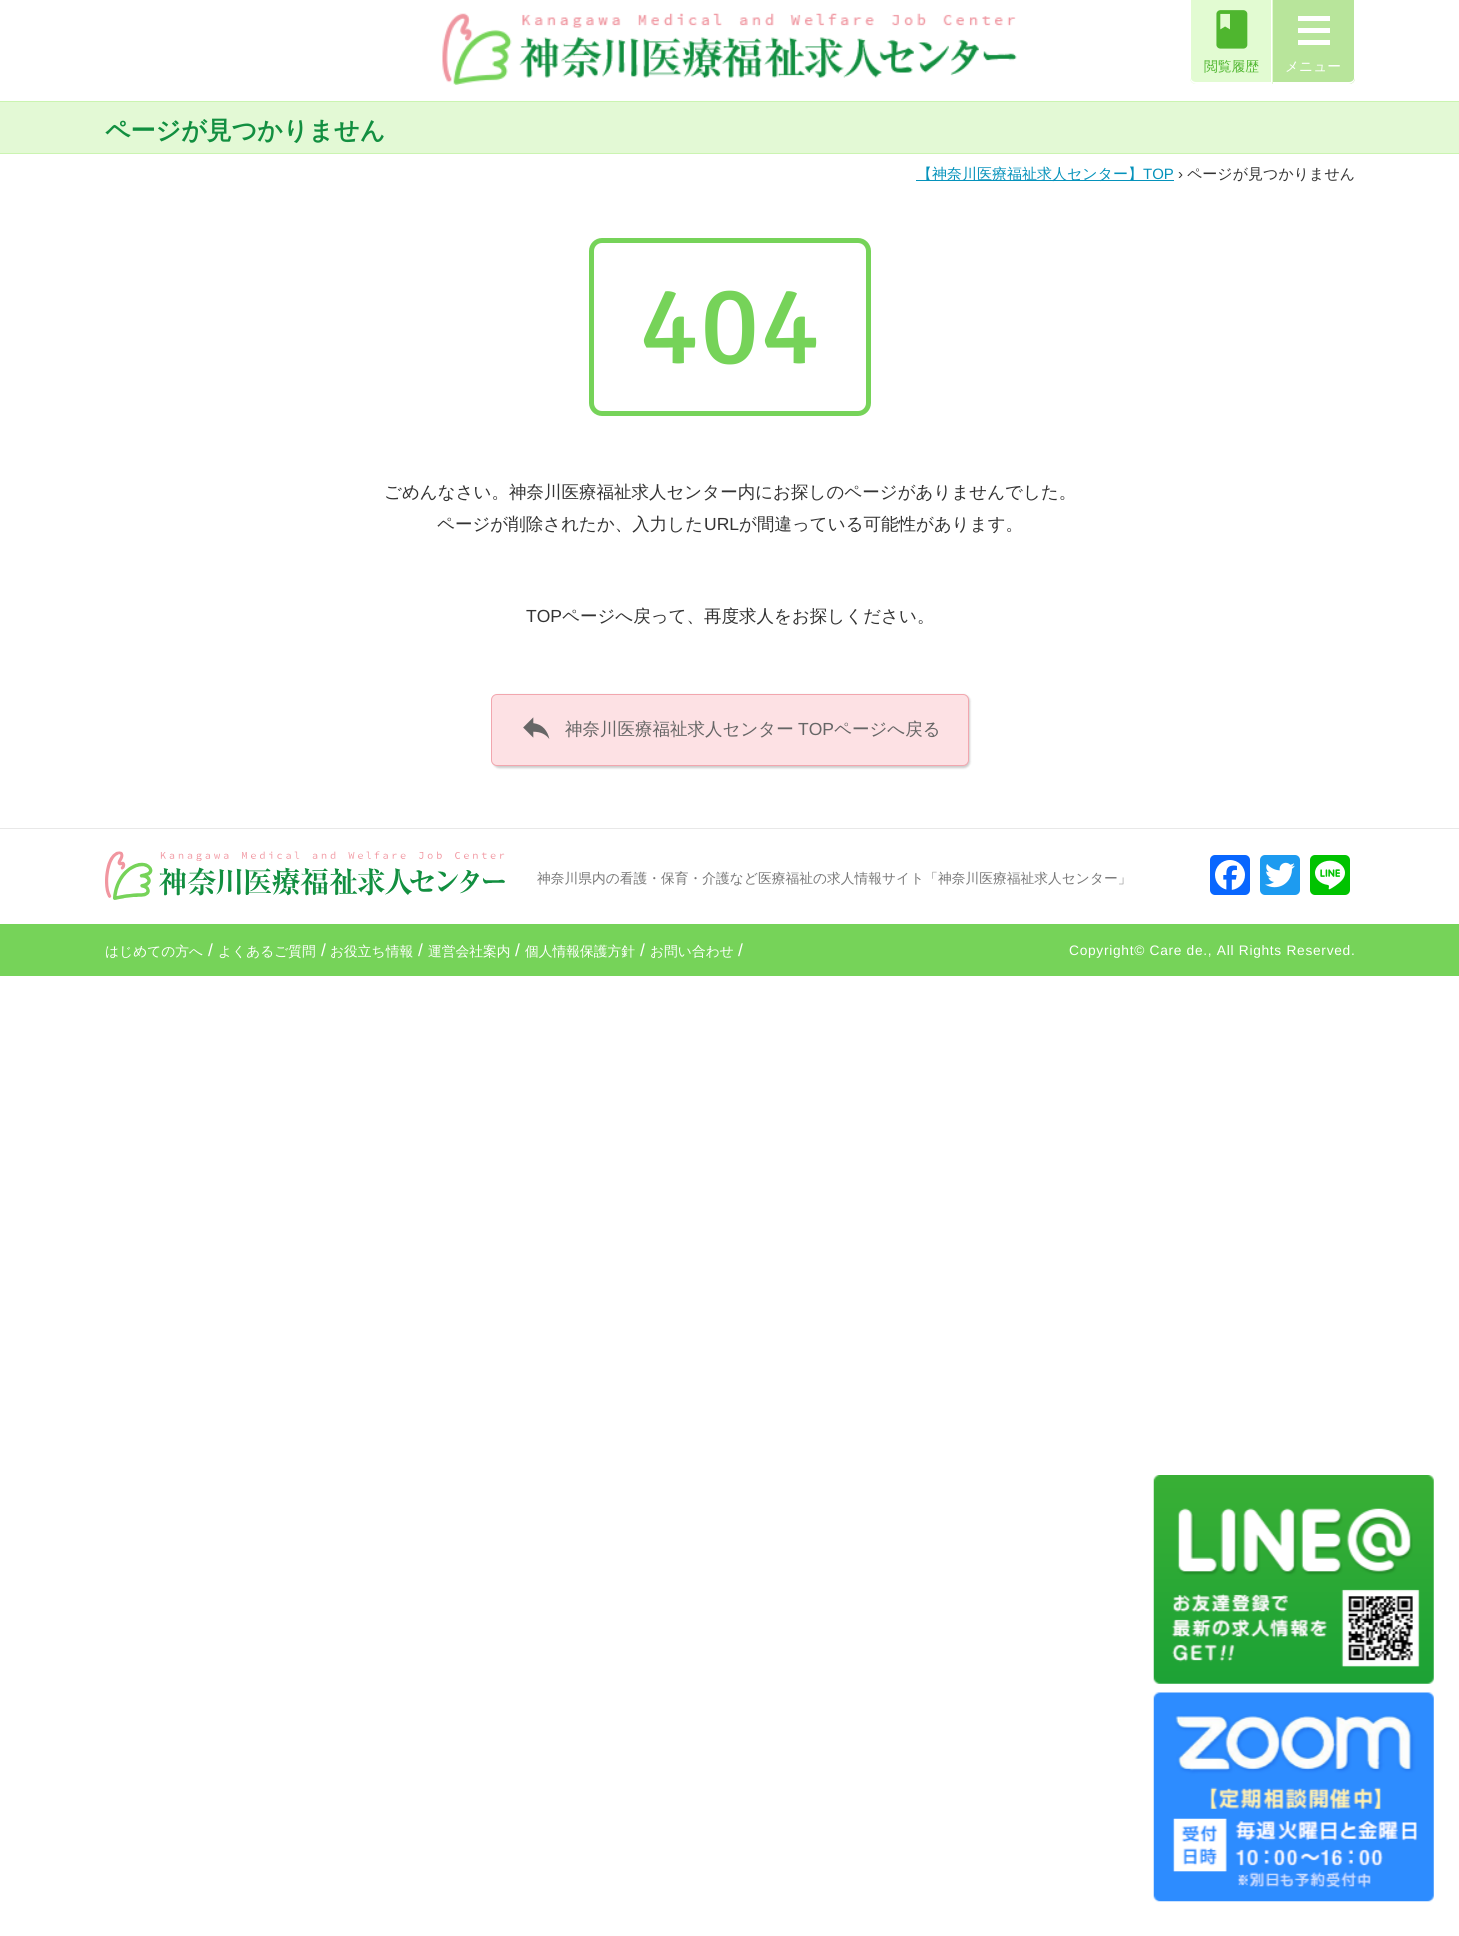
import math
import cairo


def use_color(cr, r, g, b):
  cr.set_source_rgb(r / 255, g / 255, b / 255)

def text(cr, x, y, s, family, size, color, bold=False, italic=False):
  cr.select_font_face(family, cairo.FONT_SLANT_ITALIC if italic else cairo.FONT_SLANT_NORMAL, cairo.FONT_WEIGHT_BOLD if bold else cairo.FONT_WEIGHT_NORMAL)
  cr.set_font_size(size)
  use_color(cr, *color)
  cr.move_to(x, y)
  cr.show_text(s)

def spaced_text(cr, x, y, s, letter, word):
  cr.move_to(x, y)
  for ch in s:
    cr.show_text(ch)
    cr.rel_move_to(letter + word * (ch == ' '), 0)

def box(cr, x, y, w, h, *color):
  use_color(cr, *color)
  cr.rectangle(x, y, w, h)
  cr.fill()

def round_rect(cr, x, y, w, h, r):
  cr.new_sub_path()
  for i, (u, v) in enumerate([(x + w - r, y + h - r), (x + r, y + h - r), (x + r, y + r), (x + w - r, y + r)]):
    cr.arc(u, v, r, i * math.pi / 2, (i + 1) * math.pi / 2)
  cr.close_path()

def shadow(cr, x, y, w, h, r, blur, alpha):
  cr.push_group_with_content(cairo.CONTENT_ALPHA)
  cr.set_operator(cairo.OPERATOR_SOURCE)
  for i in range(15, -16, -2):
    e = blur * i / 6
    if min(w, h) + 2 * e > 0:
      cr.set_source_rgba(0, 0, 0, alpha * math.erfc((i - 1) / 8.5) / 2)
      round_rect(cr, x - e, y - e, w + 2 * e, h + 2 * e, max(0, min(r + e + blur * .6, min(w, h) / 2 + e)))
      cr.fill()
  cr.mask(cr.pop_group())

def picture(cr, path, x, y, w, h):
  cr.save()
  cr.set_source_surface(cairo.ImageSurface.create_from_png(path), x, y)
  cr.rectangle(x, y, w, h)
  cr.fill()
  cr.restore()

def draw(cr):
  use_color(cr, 255, 255, 255)
  cr.paint()
  picture(cr, "img_01.png", 442, 13, 575, 72)
  use_color(cr, 184, 229, 155)
  cr.new_path()
  cr.move_to(1273, 0)
  cr.line_to(1355, 0)
  cr.line_to(1355, 78)
  cr.curve_to(1355, 81.5, 1352.5, 84, 1349, 84)
  cr.line_to(1273, 84)
  cr.close_path()
  cr.fill()
  use_color(cr, 255, 255, 255)
  cr.set_fill_rule(cairo.FILL_RULE_EVEN_ODD)
  cr.new_path()
  cr.move_to(1272, 0)
  cr.line_to(1355, 0)
  cr.line_to(1355, 78)
  cr.curve_to(1355, 81, 1352, 84, 1349, 84)
  cr.line_to(1272, 84)
  cr.close_path()
  cr.move_to(1272, 0)
  cr.line_to(1354, 0)
  cr.line_to(1354, 78)
  cr.curve_to(1354, 80, 1352, 82, 1349, 82)
  cr.line_to(1272, 82)
  cr.close_path()
  cr.fill()
  use_color(cr, 226, 251, 210)
  cr.new_path()
  cr.move_to(1190, 0)
  cr.line_to(1273, 0)
  cr.line_to(1273, 84)
  cr.line_to(1196, 84)
  cr.curve_to(1192.5, 84, 1190, 81.5, 1190, 78)
  cr.close_path()
  cr.fill()
  use_color(cr, 255, 255, 255)
  cr.new_path()
  cr.move_to(1190, 0)
  cr.line_to(1272, 0)
  cr.line_to(1272, 84)
  cr.line_to(1196, 84)
  cr.curve_to(1193, 84, 1190, 81, 1190, 78)
  cr.close_path()
  cr.move_to(1191, 0)
  cr.line_to(1271, 0)
  cr.line_to(1271, 82)
  cr.line_to(1196, 82)
  cr.curve_to(1193, 82, 1191, 80, 1191, 78)
  cr.close_path()
  cr.fill()
  picture(cr, "img_02.png", 1216, 10, 32, 39)
  box(cr, 1298, 16, 32, 5, 255, 255, 255)
  box(cr, 1298, 28, 32, 5, 255, 255, 255)
  box(cr, 1298, 40, 32, 5, 255, 255, 255)
  box(cr, 0, 102, 1459, 51, 227, 249, 213)
  box(cr, 0, 101, 1459, 1, 203, 244, 177)
  box(cr, 0, 153, 1459, 1, 203, 244, 177)
  box(cr, 916, 180, 258, 1, 5, 146, 187)
  round_rect(cr, 591.5, 240.5, 277, 173, 10.5)
  use_color(cr, 118, 211, 89)
  cr.set_line_width(5)
  cr.stroke()
  use_color(cr, 0, 0, 0)
  shadow(cr, 493, 695, 477, 73, 6, 1, 0.2)
  use_color(cr, 253, 225, 228)
  round_rect(cr, 491.5, 694.5, 477, 71, 5.5)
  cr.fill_preserve()
  use_color(cr, 242, 166, 174)
  cr.set_line_width(1)
  cr.stroke()
  picture(cr, "img_03.png", 523, 717, 27, 22)
  box(cr, 0, 828, 1459, 1, 232, 232, 232)
  picture(cr, "img_04.png", 105, 851, 400, 49)
  use_color(cr, 8, 102, 255)
  round_rect(cr, 1210, 855, 40, 40, 5)
  cr.fill()
  picture(cr, "img_05.png", 1215, 860, 30, 30)
  use_color(cr, 29, 155, 240)
  round_rect(cr, 1260, 855, 40, 40, 5)
  cr.fill()
  picture(cr, "img_06.png", 1265, 862, 30, 26)
  use_color(cr, 0, 195, 0)
  round_rect(cr, 1310, 855, 40, 40, 5)
  cr.fill()
  picture(cr, "img_07.png", 1315, 860, 30, 30)
  box(cr, 0, 924, 1459, 52, 118, 211, 89)
  picture(cr, "img_08.png", 1153, 1475, 281, 209)
  picture(cr, "img_09.png", 1153, 1692, 281, 210)
  text(cr, 1204, 71, "閲覧履歴", "WenQuanYi Zen Hei Medium", 13.75, (79, 182, 47))
  text(cr, 1285, 71, "メニュー", "WenQuanYi Zen Hei Medium", 13.75, (255, 255, 255))
  text(cr, 105, 139, "ページが見つかりません", "WenQuanYi Zen Hei", 25, (18, 143, 64), bold=True)
  text(cr, 917, 179, "【神奈川医療福祉求人センター】", "WenQuanYi Zen Hei Medium", 15, (5, 146, 187))
  text(cr, 1143, 179, "TOP", "Liberation Sans", 15, (5, 146, 187))
  text(cr, 1178, 179, "›", "Liberation Sans", 15, (51, 51, 51))
  text(cr, 1187, 179, "ページが見つかりません", "WenQuanYi Zen Hei Medium", 15, (51, 51, 51))
  text(cr, 639, 363, "404", "Signika Light", 112, (118, 211, 89))
  text(cr, 384, 498, "ごめんなさい。神奈川医療福祉求人センター内にお探しのページがありませんでした。", "WenQuanYi Zen Hei Medium", 17.5, (51, 51, 51))
  text(cr, 437, 530, "ページが削除されたか、入力した", "WenQuanYi Zen Hei Medium", 17.5, (51, 51, 51))
  text(cr, 704, 530, "URL", "Liberation Sans", 17.5, (51, 51, 51))
  text(cr, 739, 530, "が間違っている可能性があります。", "WenQuanYi Zen Hei Medium", 17.5, (51, 51, 51))
  text(cr, 526, 622, "TOP", "Liberation Sans", 17.5, (51, 51, 51))
  text(cr, 562, 622, "ページへ戻って、再度求人をお探しください。", "WenQuanYi Zen Hei Medium", 17.5, (51, 51, 51))
  text(cr, 565, 735, "神奈川医療福祉求人センター", "WenQuanYi Zen Hei Medium", 17.5, (102, 102, 102))
  text(cr, 798, 735, "TOP", "Liberation Sans", 17.5, (102, 102, 102))
  text(cr, 834, 735, "ページへ戻る", "WenQuanYi Zen Hei Medium", 17.5, (102, 102, 102))
  text(cr, 537, 883, "神奈川県内の看護・保育・介護など医療福祉の求人情報サイト「神奈川医療福祉求人センター」", "WenQuanYi Zen Hei Medium", 13.75, (119, 119, 119))
  text(cr, 105, 956, "はじめての方へ", "WenQuanYi Zen Hei Medium", 13.75, (255, 255, 255))
  text(cr, 208, 956, "/", "Liberation Sans", 17.5, (255, 255, 255))
  text(cr, 218, 956, "よくあるご質問", "WenQuanYi Zen Hei Medium", 13.75, (255, 255, 255))
  text(cr, 321, 956, "/", "Liberation Sans", 17.5, (255, 255, 255))
  text(cr, 330, 956, "お役立ち情報", "WenQuanYi Zen Hei Medium", 13.75, (255, 255, 255))
  text(cr, 418, 956, "/", "Liberation Sans", 17.5, (255, 255, 255))
  text(cr, 428, 956, "運営会社案内", "WenQuanYi Zen Hei Medium", 13.75, (255, 255, 255))
  text(cr, 515, 956, "/", "Liberation Sans", 17.5, (255, 255, 255))
  text(cr, 525, 956, "個人情報保護方針", "WenQuanYi Zen Hei Medium", 13.75, (255, 255, 255))
  text(cr, 640, 956, "/", "Liberation Sans", 17.5, (255, 255, 255))
  text(cr, 650, 956, "お問い合わせ", "WenQuanYi Zen Hei Medium", 13.75, (255, 255, 255))
  text(cr, 738, 956, "/", "Liberation Sans", 17.5, (255, 255, 255))
  cr.set_font_size(13.75)
  spaced_text(cr, 1069, 955, "Copyright© Care de., All Rights Reserved.", 0.7, 0)


surface = cairo.ImageSurface(cairo.FORMAT_RGB24, 1459, 1936)
cr = cairo.Context(surface)
options = cairo.FontOptions()
options.set_hint_metrics(cairo.HINT_METRICS_OFF)
options.set_hint_style(cairo.HINT_STYLE_NONE)
cr.set_font_options(options)
cr.set_miter_limit(4)
draw(cr)
surface.write_to_png("out.png")
